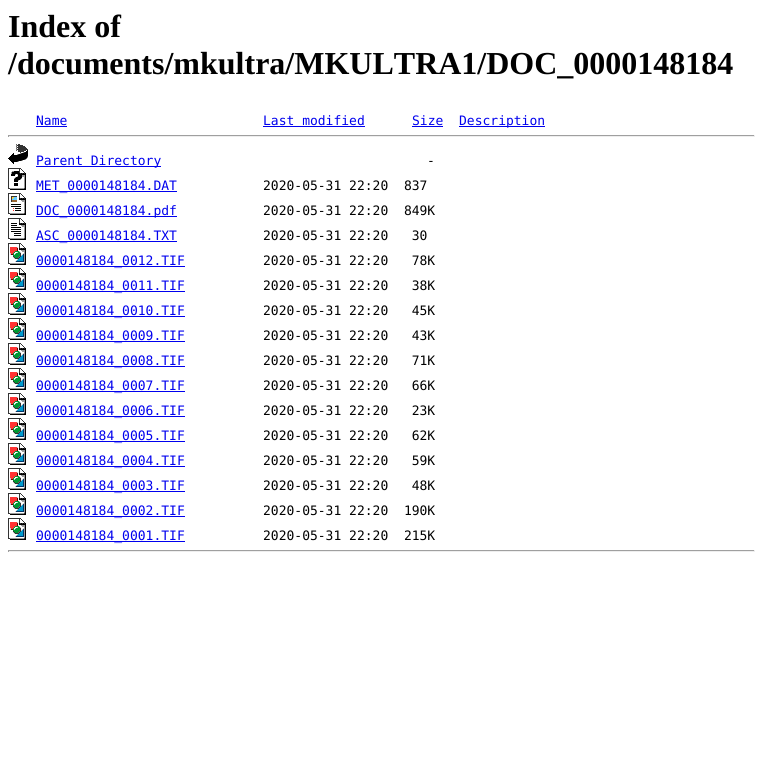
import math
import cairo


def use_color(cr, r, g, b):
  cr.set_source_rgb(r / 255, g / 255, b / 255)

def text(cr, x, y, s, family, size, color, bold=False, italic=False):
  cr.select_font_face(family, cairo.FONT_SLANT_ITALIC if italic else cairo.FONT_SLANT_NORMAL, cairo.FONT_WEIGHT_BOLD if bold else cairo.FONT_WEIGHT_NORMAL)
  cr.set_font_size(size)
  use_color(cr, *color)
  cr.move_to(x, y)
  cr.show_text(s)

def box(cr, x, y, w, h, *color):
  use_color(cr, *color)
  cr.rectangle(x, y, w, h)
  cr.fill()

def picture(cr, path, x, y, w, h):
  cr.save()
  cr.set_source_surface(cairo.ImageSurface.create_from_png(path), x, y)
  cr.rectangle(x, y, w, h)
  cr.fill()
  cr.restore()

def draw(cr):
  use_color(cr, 255, 255, 255)
  cr.paint()
  box(cr, 36, 126, 31, 1, 0, 0, 238)
  box(cr, 263, 126, 102, 1, 0, 0, 238)
  box(cr, 412, 126, 31, 1, 0, 0, 238)
  box(cr, 459, 126, 86, 1, 0, 0, 238)
  box(cr, 8, 135, 747, 1, 159, 159, 159)
  box(cr, 754, 135, 1, 2, 238, 238, 238)
  box(cr, 8, 136, 747, 1, 238, 238, 238)
  box(cr, 8, 135, 1, 2, 159, 159, 159)
  picture(cr, "img_01.png", 8, 144, 20, 20)
  box(cr, 36, 166, 125, 1, 0, 0, 238)
  picture(cr, "img_02.png", 8, 168, 18, 22)
  box(cr, 36, 191, 141, 1, 0, 0, 238)
  picture(cr, "img_03.png", 8, 193, 18, 22)
  box(cr, 36, 216, 141, 1, 0, 0, 238)
  picture(cr, "img_04.png", 8, 218, 18, 22)
  box(cr, 36, 241, 141, 1, 0, 0, 238)
  picture(cr, "img_05.png", 8, 243, 18, 22)
  box(cr, 36, 266, 149, 1, 0, 0, 238)
  picture(cr, "img_05.png", 8, 268, 18, 22)
  box(cr, 36, 291, 149, 1, 0, 0, 238)
  picture(cr, "img_05.png", 8, 293, 18, 22)
  box(cr, 36, 316, 149, 1, 0, 0, 238)
  picture(cr, "img_05.png", 8, 318, 18, 22)
  box(cr, 36, 341, 149, 1, 0, 0, 238)
  picture(cr, "img_05.png", 8, 343, 18, 22)
  box(cr, 36, 366, 149, 1, 0, 0, 238)
  picture(cr, "img_05.png", 8, 368, 18, 22)
  box(cr, 36, 391, 149, 1, 0, 0, 238)
  picture(cr, "img_05.png", 8, 393, 18, 22)
  box(cr, 36, 416, 149, 1, 0, 0, 238)
  picture(cr, "img_05.png", 8, 418, 18, 22)
  box(cr, 36, 441, 149, 1, 0, 0, 238)
  picture(cr, "img_05.png", 8, 443, 18, 22)
  box(cr, 36, 466, 149, 1, 0, 0, 238)
  picture(cr, "img_05.png", 8, 468, 18, 22)
  box(cr, 36, 491, 149, 1, 0, 0, 238)
  picture(cr, "img_05.png", 8, 493, 18, 22)
  box(cr, 36, 516, 149, 1, 0, 0, 238)
  picture(cr, "img_05.png", 8, 518, 18, 22)
  box(cr, 36, 541, 149, 1, 0, 0, 238)
  box(cr, 8, 550, 747, 1, 159, 159, 159)
  box(cr, 754, 550, 1, 2, 238, 238, 238)
  box(cr, 8, 551, 747, 1, 238, 238, 238)
  box(cr, 8, 550, 1, 2, 159, 159, 159)
  text(cr, 8, 37, "Index of", "Liberation Serif", 32, (0, 0, 0), bold=True)
  text(cr, 8, 74, "/documents/mkultra/MKULTRA1/DOC_0000148184", "Liberation Serif", 32, (0, 0, 0), bold=True)
  text(cr, 36, 125, "Name", "DejaVu Sans Mono", 13, (0, 0, 238))
  text(cr, 263, 125, "Last modified", "DejaVu Sans Mono", 13, (0, 0, 238))
  text(cr, 412, 125, "Size", "DejaVu Sans Mono", 13, (0, 0, 238))
  text(cr, 459, 125, "Description", "DejaVu Sans Mono", 13, (0, 0, 238))
  text(cr, 36, 165, "Parent Directory", "DejaVu Sans Mono", 13, (0, 0, 238))
  text(cr, 427, 165, "-", "DejaVu Sans Mono", 13, (0, 0, 0))
  text(cr, 36, 190, "MET_0000148184.DAT", "DejaVu Sans Mono", 13, (0, 0, 238))
  text(cr, 263, 190, "2020-05-31 22:20  837", "DejaVu Sans Mono", 13, (0, 0, 0))
  text(cr, 36, 215, "DOC_0000148184.pdf", "DejaVu Sans Mono", 13, (0, 0, 238))
  text(cr, 263, 215, "2020-05-31 22:20  849K", "DejaVu Sans Mono", 13, (0, 0, 0))
  text(cr, 36, 240, "ASC_0000148184.TXT", "DejaVu Sans Mono", 13, (0, 0, 238))
  text(cr, 263, 240, "2020-05-31 22:20   30", "DejaVu Sans Mono", 13, (0, 0, 0))
  text(cr, 36, 265, "0000148184_0012.TIF", "DejaVu Sans Mono", 13, (0, 0, 238))
  text(cr, 263, 265, "2020-05-31 22:20   78K", "DejaVu Sans Mono", 13, (0, 0, 0))
  text(cr, 36, 290, "0000148184_0011.TIF", "DejaVu Sans Mono", 13, (0, 0, 238))
  text(cr, 263, 290, "2020-05-31 22:20   38K", "DejaVu Sans Mono", 13, (0, 0, 0))
  text(cr, 36, 315, "0000148184_0010.TIF", "DejaVu Sans Mono", 13, (0, 0, 238))
  text(cr, 263, 315, "2020-05-31 22:20   45K", "DejaVu Sans Mono", 13, (0, 0, 0))
  text(cr, 36, 340, "0000148184_0009.TIF", "DejaVu Sans Mono", 13, (0, 0, 238))
  text(cr, 263, 340, "2020-05-31 22:20   43K", "DejaVu Sans Mono", 13, (0, 0, 0))
  text(cr, 36, 365, "0000148184_0008.TIF", "DejaVu Sans Mono", 13, (0, 0, 238))
  text(cr, 263, 365, "2020-05-31 22:20   71K", "DejaVu Sans Mono", 13, (0, 0, 0))
  text(cr, 36, 390, "0000148184_0007.TIF", "DejaVu Sans Mono", 13, (0, 0, 238))
  text(cr, 263, 390, "2020-05-31 22:20   66K", "DejaVu Sans Mono", 13, (0, 0, 0))
  text(cr, 36, 415, "0000148184_0006.TIF", "DejaVu Sans Mono", 13, (0, 0, 238))
  text(cr, 263, 415, "2020-05-31 22:20   23K", "DejaVu Sans Mono", 13, (0, 0, 0))
  text(cr, 36, 440, "0000148184_0005.TIF", "DejaVu Sans Mono", 13, (0, 0, 238))
  text(cr, 263, 440, "2020-05-31 22:20   62K", "DejaVu Sans Mono", 13, (0, 0, 0))
  text(cr, 36, 465, "0000148184_0004.TIF", "DejaVu Sans Mono", 13, (0, 0, 238))
  text(cr, 263, 465, "2020-05-31 22:20   59K", "DejaVu Sans Mono", 13, (0, 0, 0))
  text(cr, 36, 490, "0000148184_0003.TIF", "DejaVu Sans Mono", 13, (0, 0, 238))
  text(cr, 263, 490, "2020-05-31 22:20   48K", "DejaVu Sans Mono", 13, (0, 0, 0))
  text(cr, 36, 515, "0000148184_0002.TIF", "DejaVu Sans Mono", 13, (0, 0, 238))
  text(cr, 263, 515, "2020-05-31 22:20  190K", "DejaVu Sans Mono", 13, (0, 0, 0))
  text(cr, 36, 540, "0000148184_0001.TIF", "DejaVu Sans Mono", 13, (0, 0, 238))
  text(cr, 263, 540, "2020-05-31 22:20  215K", "DejaVu Sans Mono", 13, (0, 0, 0))


surface = cairo.ImageSurface(cairo.FORMAT_RGB24, 763, 778)
cr = cairo.Context(surface)
options = cairo.FontOptions()
options.set_hint_metrics(cairo.HINT_METRICS_OFF)
options.set_hint_style(cairo.HINT_STYLE_NONE)
cr.set_font_options(options)
cr.set_miter_limit(4)
draw(cr)
surface.write_to_png("out.png")
